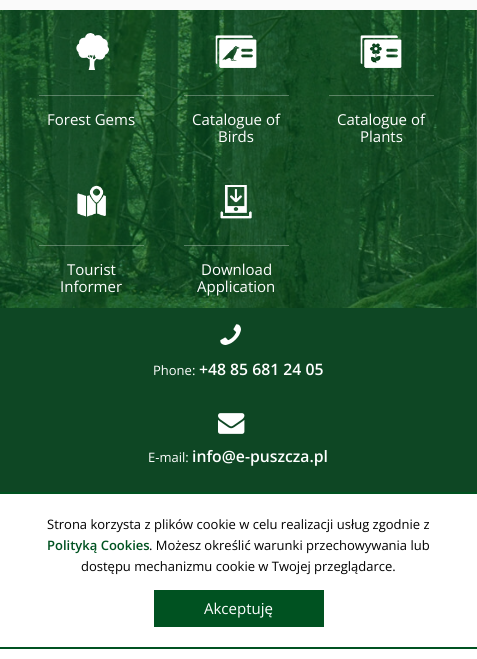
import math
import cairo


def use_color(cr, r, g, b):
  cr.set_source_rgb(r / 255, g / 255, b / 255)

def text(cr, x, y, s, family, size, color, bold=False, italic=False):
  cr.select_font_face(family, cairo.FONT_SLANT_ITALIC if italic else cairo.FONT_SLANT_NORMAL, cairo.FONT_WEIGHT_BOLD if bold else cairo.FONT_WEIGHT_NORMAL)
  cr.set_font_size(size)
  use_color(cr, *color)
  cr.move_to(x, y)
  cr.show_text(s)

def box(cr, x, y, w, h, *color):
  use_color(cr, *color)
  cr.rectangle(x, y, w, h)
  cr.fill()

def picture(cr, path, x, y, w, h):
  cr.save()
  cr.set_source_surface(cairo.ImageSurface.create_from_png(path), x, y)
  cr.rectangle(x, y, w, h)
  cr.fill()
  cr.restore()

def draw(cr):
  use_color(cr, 250, 250, 250)
  cr.paint()
  picture(cr, "img_01.png", 0, 10, 477, 298)
  picture(cr, "img_02.png", 76, 33, 33, 37)
  cr.set_source_rgba(1, 1, 1, 0.3)
  cr.rectangle(39, 95, 105, 1)
  cr.fill()
  picture(cr, "img_03.png", 215, 35, 42, 33)
  cr.rectangle(184, 95, 105, 1)
  cr.fill()
  picture(cr, "img_04.png", 360, 35, 42, 33)
  cr.rectangle(329, 95, 105, 1)
  cr.fill()
  picture(cr, "img_05.png", 77, 185, 29, 32)
  cr.rectangle(39, 245, 105, 1)
  cr.fill()
  picture(cr, "img_06.png", 220, 185, 32, 34)
  cr.rectangle(184, 245, 105, 1)
  cr.fill()
  box(cr, 0, 649, 477, 10, 255, 255, 255)
  box(cr, 0, 308, 477, 184, 14, 71, 36)
  picture(cr, "img_07.png", 220, 324, 21, 21)
  picture(cr, "img_08.png", 218, 413, 27, 21)
  box(cr, 0, 494, 477, 153, 255, 255, 255)
  box(cr, 0, 492, 477, 2, 0, 82, 33)
  box(cr, 0, 647, 477, 2, 0, 82, 33)
  box(cr, 154, 590, 170, 37, 0, 82, 33)
  text(cr, 47, 125, "Forest Gems", "Open Sans", 15, (255, 255, 255))
  text(cr, 192, 125, "Catalogue of", "Open Sans", 15, (255, 255, 255))
  text(cr, 218, 142, "Birds", "Open Sans", 15, (255, 255, 255))
  text(cr, 337, 125, "Catalogue of", "Open Sans", 15, (255, 255, 255))
  text(cr, 360, 142, "Plants", "Open Sans", 15, (255, 255, 255))
  text(cr, 67, 275, "Tourist", "Open Sans", 15, (255, 255, 255))
  text(cr, 60, 292, "Informer", "Open Sans", 15, (255, 255, 255))
  text(cr, 201, 275, "Download", "Open Sans", 15, (255, 255, 255))
  text(cr, 197, 292, "Application", "Open Sans", 15, (255, 255, 255))
  text(cr, 153, 375, "Phone:", "Open Sans", 13, (255, 255, 255))
  text(cr, 199, 375, "+48 85 681 24 05", "Open Sans SemiBold", 15.75, (255, 255, 255))
  text(cr, 148, 462, "E-mail:", "Open Sans", 13, (255, 255, 255))
  text(cr, 192, 462, "info@e-puszcza.pl", "Open Sans SemiBold", 15.75, (255, 255, 255))
  text(cr, 47, 529, "Strona korzysta z plików cookie w celu realizacji usług zgodnie z", "Open Sans", 13, (0, 0, 0))
  text(cr, 47, 550, "Polityką Cookies", "Open Sans SemiBold", 13, (0, 82, 33))
  text(cr, 149, 550, ". Możesz określić warunki przechowywania lub", "Open Sans", 13, (0, 0, 0))
  text(cr, 81, 571, "dostępu mechanizmu cookie w Twojej przeglądarce.", "Open Sans", 13, (0, 0, 0))
  text(cr, 204, 614, "Akceptuję", "Open Sans", 15, (255, 255, 255))


surface = cairo.ImageSurface(cairo.FORMAT_RGB24, 477, 659)
cr = cairo.Context(surface)
options = cairo.FontOptions()
options.set_hint_metrics(cairo.HINT_METRICS_OFF)
options.set_hint_style(cairo.HINT_STYLE_NONE)
cr.set_font_options(options)
cr.set_miter_limit(4)
draw(cr)
surface.write_to_png("out.png")
